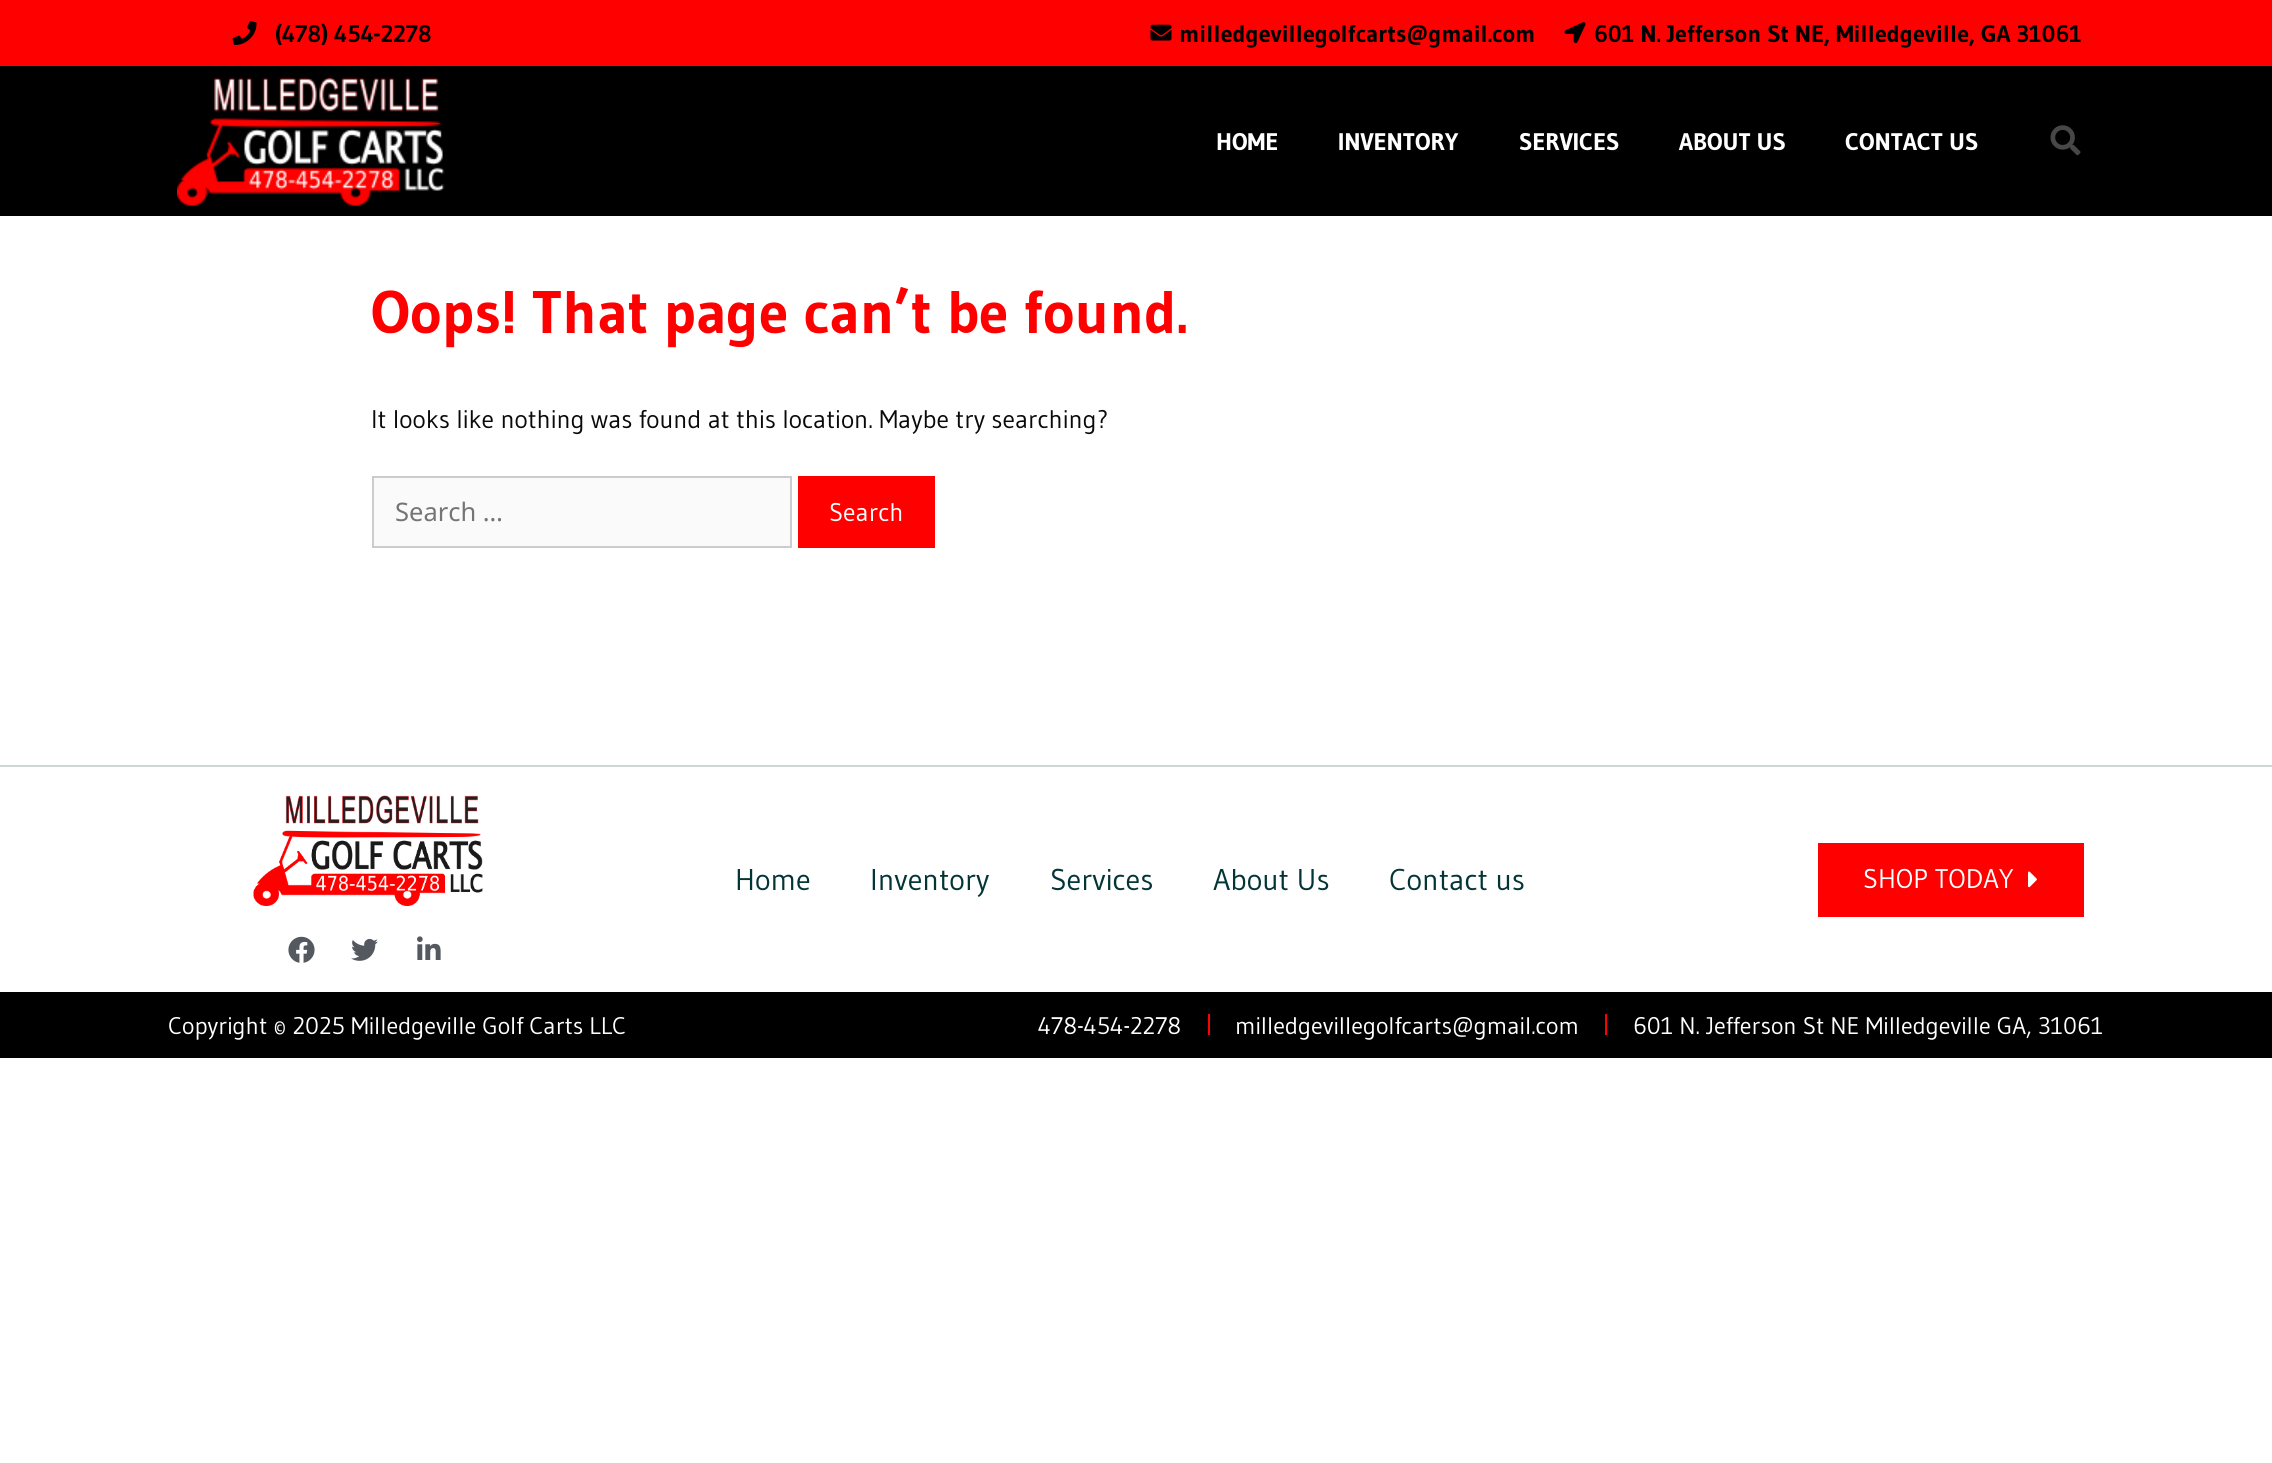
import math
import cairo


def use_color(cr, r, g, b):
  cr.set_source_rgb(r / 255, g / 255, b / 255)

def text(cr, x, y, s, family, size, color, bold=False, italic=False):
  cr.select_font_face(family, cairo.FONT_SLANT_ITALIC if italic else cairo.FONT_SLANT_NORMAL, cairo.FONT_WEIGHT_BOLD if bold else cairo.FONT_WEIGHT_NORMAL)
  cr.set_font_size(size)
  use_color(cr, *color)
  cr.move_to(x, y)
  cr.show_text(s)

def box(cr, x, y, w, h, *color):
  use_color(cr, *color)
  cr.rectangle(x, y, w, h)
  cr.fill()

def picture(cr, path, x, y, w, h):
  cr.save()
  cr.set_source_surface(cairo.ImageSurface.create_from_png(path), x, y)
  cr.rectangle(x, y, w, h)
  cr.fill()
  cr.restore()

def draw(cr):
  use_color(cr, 255, 255, 255)
  cr.paint()
  box(cr, 0, 0, 2272, 66, 255, 0, 0)
  picture(cr, "img_01.png", 232, 21, 25, 24)
  picture(cr, "img_02.png", 1150, 24, 22, 17)
  picture(cr, "img_03.png", 1564, 22, 22, 22)
  box(cr, 0, 66, 2272, 150, 0, 0, 0)
  picture(cr, "img_04.png", 177, 78, 268, 128)
  picture(cr, "img_05.png", 2050, 125, 31, 31)
  use_color(cr, 250, 250, 250)
  cr.rectangle(373, 477, 418, 70)
  cr.fill_preserve()
  use_color(cr, 204, 204, 204)
  cr.stroke()
  box(cr, 798, 476, 137, 72, 255, 0, 0)
  box(cr, 0, 765, 2272, 2, 205, 215, 215)
  picture(cr, "img_06.png", 253, 795, 230, 111)
  picture(cr, "img_07.png", 288, 936, 27, 27)
  picture(cr, "img_08.png", 351, 938, 27, 23)
  picture(cr, "img_09.png", 417, 936, 24, 24)
  box(cr, 1818, 843, 266, 74, 255, 0, 0)
  picture(cr, "img_10.png", 2028, 871, 9, 17)
  box(cr, 0, 992, 2272, 66, 0, 0, 0)
  box(cr, 1208, 1014, 2, 21, 255, 0, 0)
  box(cr, 1605, 1014, 2, 21, 255, 0, 0)
  text(cr, 275, 42, "(478) 454-2278", "Gudea", 24, (0, 0, 0), bold=True)
  text(cr, 1179, 42, "milledgevillegolfcarts@gmail.com", "Gudea", 24, (0, 0, 0), bold=True)
  text(cr, 1594, 42, "601 N. Jefferson St NE, Milledgeville, GA 31061", "Gudea", 24, (0, 0, 0), bold=True)
  text(cr, 1216, 150, "HOME", "Gudea", 24, (255, 255, 255), bold=True)
  text(cr, 1338, 150, "INVENTORY", "Gudea", 24, (255, 255, 255), bold=True)
  text(cr, 1519, 150, "SERVICES", "Gudea", 24, (255, 255, 255), bold=True)
  text(cr, 1679, 150, "ABOUT US", "Gudea", 24, (255, 255, 255), bold=True)
  text(cr, 1845, 150, "CONTACT US", "Gudea", 24, (255, 255, 255), bold=True)
  text(cr, 371, 333, "Oops! That page can’t be found.", "Gudea", 60, (255, 0, 0), bold=True)
  text(cr, 371, 428, "It looks like nothing was found at this location. Maybe try searching?", "Gudea", 25.5, (10, 10, 10))
  text(cr, 395, 521, "Search …", "Noto Sans", 25.5, (117, 117, 117))
  text(cr, 829, 521, "Search", "Gudea", 25.5, (255, 255, 255))
  text(cr, 735, 890, "Home", "Gudea", 30, (3, 53, 55))
  text(cr, 870, 890, "Inventory", "Gudea", 30, (3, 53, 55))
  text(cr, 1050, 890, "Services", "Gudea", 30, (3, 53, 55))
  text(cr, 1213, 890, "About Us", "Gudea", 30, (3, 53, 55))
  text(cr, 1389, 890, "Contact us", "Gudea", 30, (3, 53, 55))
  text(cr, 1863, 888, "SHOP TODAY", "Gudea", 27, (255, 255, 255))
  text(cr, 168, 1034, "Copyright © 2025 Milledgeville Golf Carts LLC", "Gudea", 24, (255, 255, 255))
  text(cr, 1038, 1034, "478-454-2278", "Gudea", 24, (255, 255, 255))
  text(cr, 1235, 1034, "milledgevillegolfcarts@gmail.com", "Gudea", 24, (255, 255, 255))
  text(cr, 1633, 1034, "601 N. Jefferson St NE Milledgeville GA, 31061", "Gudea", 24, (255, 255, 255))


surface = cairo.ImageSurface(cairo.FORMAT_RGB24, 2272, 1463)
cr = cairo.Context(surface)
options = cairo.FontOptions()
options.set_hint_metrics(cairo.HINT_METRICS_OFF)
options.set_hint_style(cairo.HINT_STYLE_NONE)
cr.set_font_options(options)
cr.set_miter_limit(4)
draw(cr)
surface.write_to_png("out.png")
